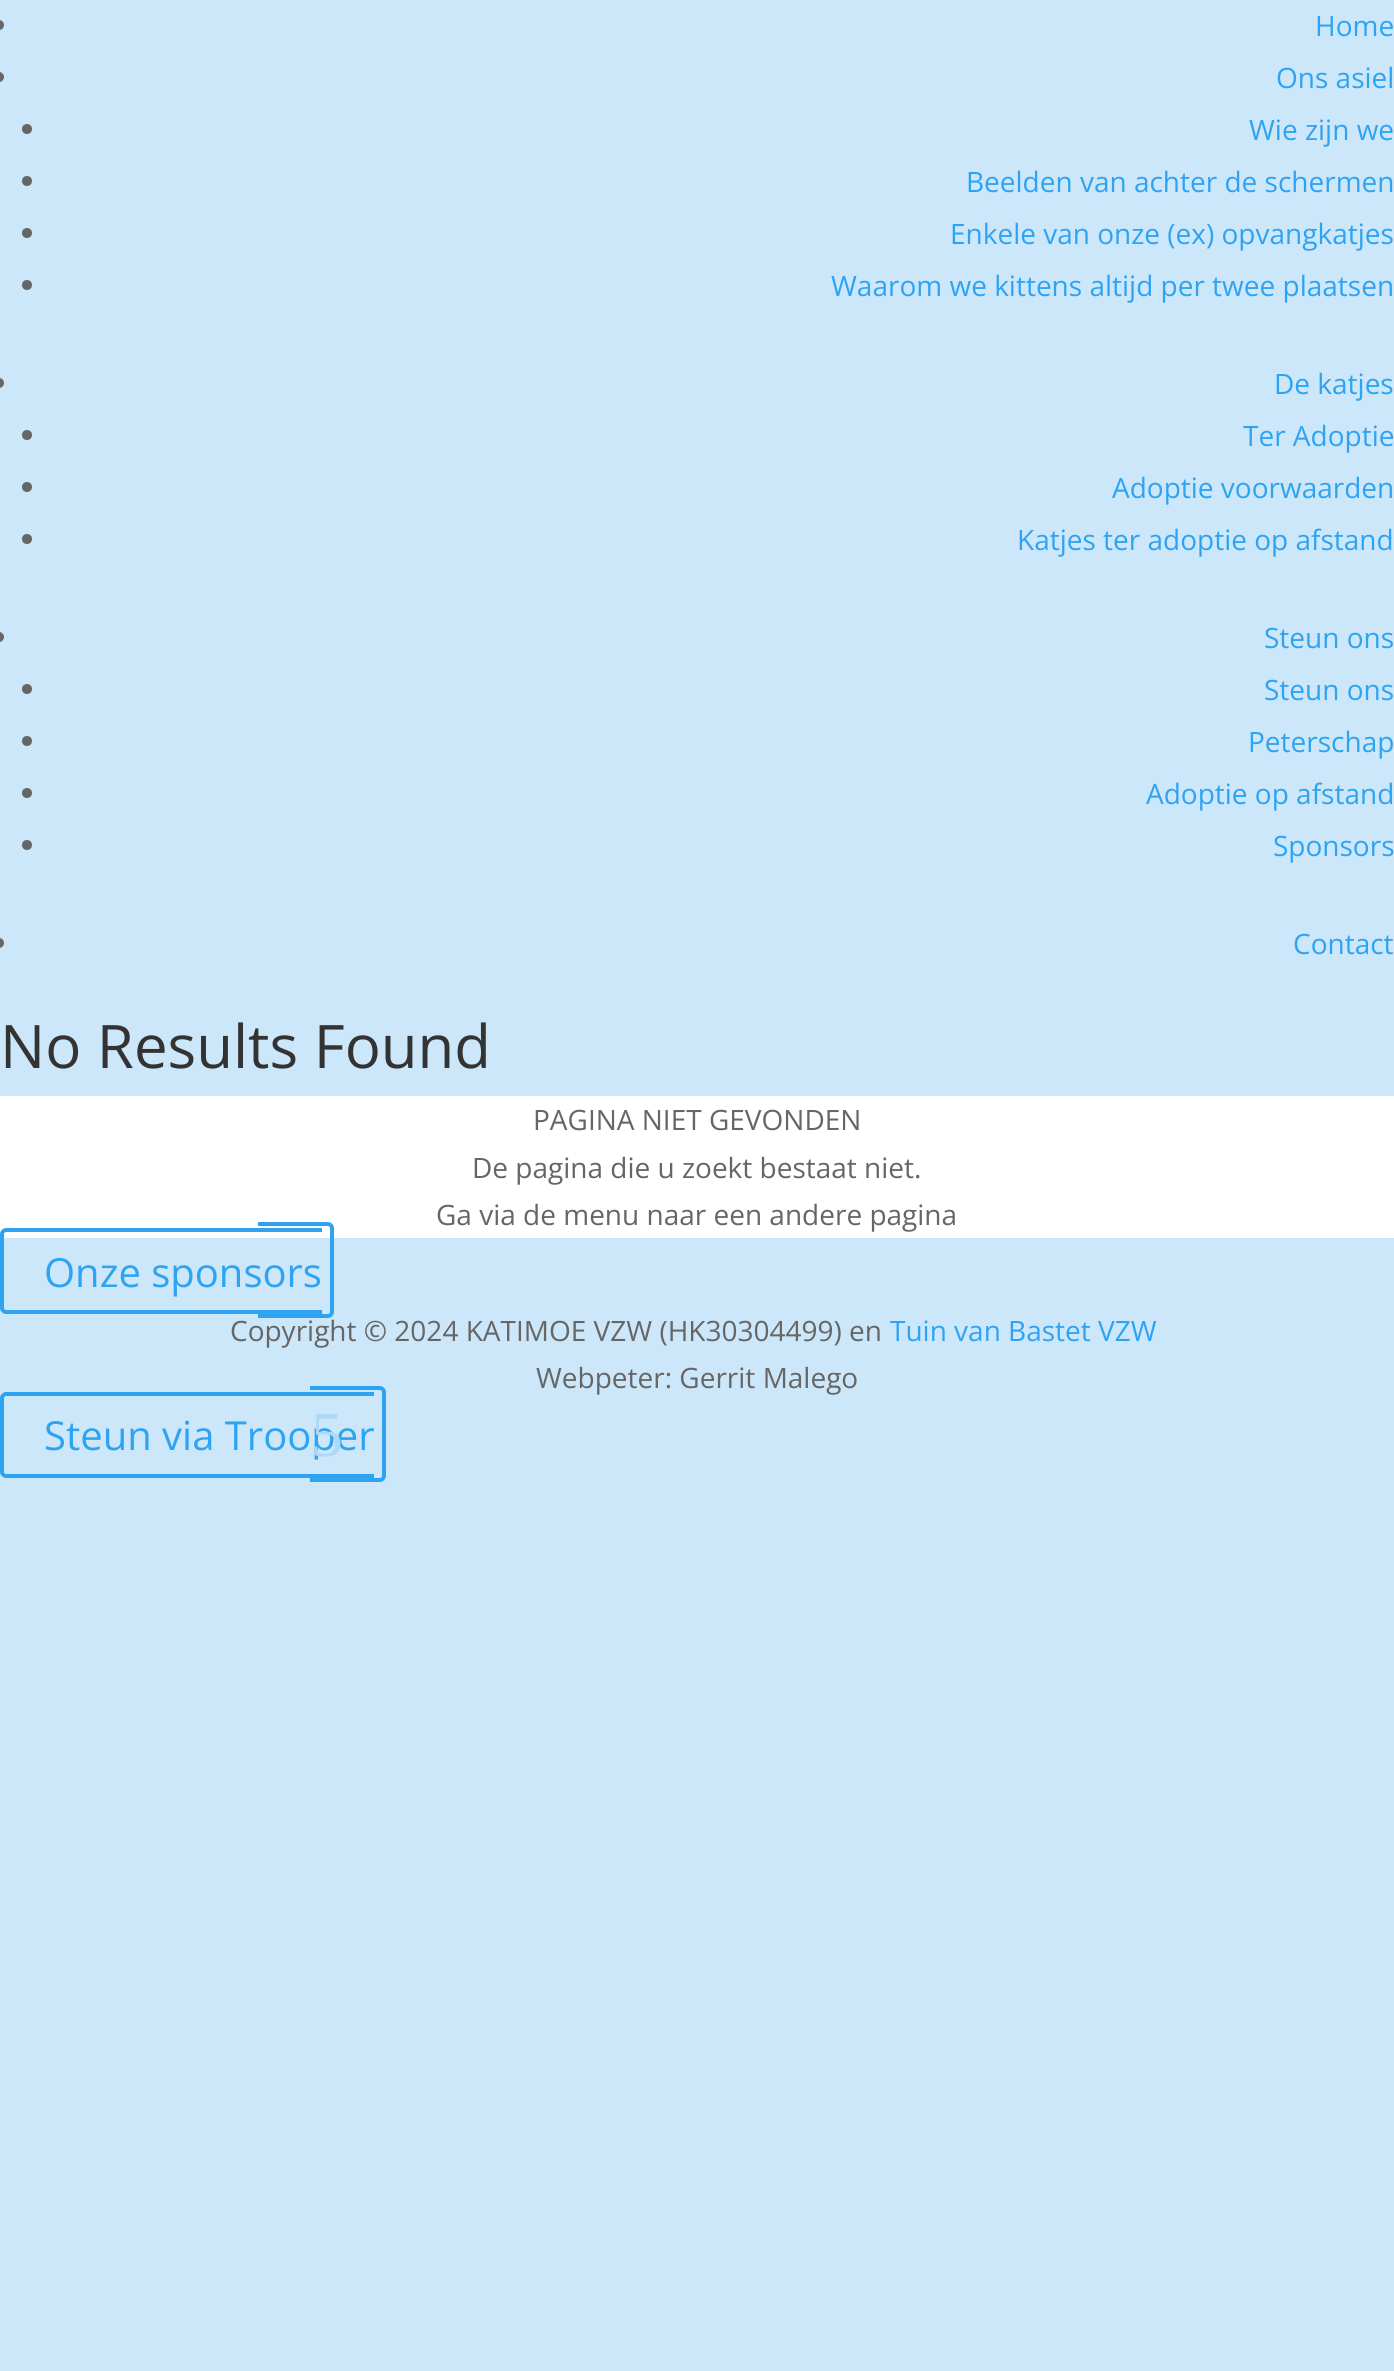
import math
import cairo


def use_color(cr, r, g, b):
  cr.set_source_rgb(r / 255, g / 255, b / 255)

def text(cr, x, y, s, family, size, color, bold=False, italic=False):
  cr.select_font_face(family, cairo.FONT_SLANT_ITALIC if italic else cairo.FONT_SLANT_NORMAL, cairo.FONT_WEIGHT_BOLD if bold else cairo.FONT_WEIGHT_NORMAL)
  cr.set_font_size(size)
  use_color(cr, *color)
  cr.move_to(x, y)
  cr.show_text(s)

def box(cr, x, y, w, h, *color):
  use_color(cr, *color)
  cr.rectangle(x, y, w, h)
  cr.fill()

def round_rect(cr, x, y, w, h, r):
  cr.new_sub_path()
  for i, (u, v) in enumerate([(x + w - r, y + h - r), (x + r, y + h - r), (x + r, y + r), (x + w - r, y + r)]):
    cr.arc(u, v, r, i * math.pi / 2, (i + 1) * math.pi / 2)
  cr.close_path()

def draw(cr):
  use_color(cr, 204, 231, 249)
  cr.paint()
  use_color(cr, 102, 102, 102)
  round_rect(cr, -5, 20, 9, 10, 5)
  cr.fill()
  round_rect(cr, -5, 72, 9, 10, 5)
  cr.fill()
  cr.arc(27, 129, 5, 0, 2 * math.pi)
  cr.fill()
  cr.arc(27, 181, 5, 0, 2 * math.pi)
  cr.fill()
  cr.arc(27, 233, 5, 0, 2 * math.pi)
  cr.fill()
  cr.arc(27, 285, 5, 0, 2 * math.pi)
  cr.fill()
  round_rect(cr, -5, 378, 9, 10, 5)
  cr.fill()
  cr.arc(27, 435, 5, 0, 2 * math.pi)
  cr.fill()
  cr.arc(27, 487, 5, 0, 2 * math.pi)
  cr.fill()
  cr.arc(27, 539, 5, 0, 2 * math.pi)
  cr.fill()
  round_rect(cr, -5, 632, 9, 10, 5)
  cr.fill()
  cr.arc(27, 689, 5, 0, 2 * math.pi)
  cr.fill()
  cr.arc(27, 741, 5, 0, 2 * math.pi)
  cr.fill()
  cr.arc(27, 793, 5, 0, 2 * math.pi)
  cr.fill()
  cr.arc(27, 845, 5, 0, 2 * math.pi)
  cr.fill()
  round_rect(cr, -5, 938, 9, 10, 5)
  cr.fill()
  box(cr, 0, 1096, 1394, 142, 255, 255, 255)
  use_color(cr, 46, 163, 242)
  cr.set_fill_rule(cairo.FILL_RULE_EVEN_ODD)
  cr.new_path()
  cr.move_to(6, 1228)
  cr.line_to(322, 1228)
  cr.line_to(322, 1314)
  cr.line_to(6, 1314)
  cr.curve_to(3, 1314, 0, 1311, 0, 1308)
  cr.line_to(0, 1234)
  cr.curve_to(0, 1231, 3, 1228, 6, 1228)
  cr.close_path()
  cr.move_to(6, 1232)
  cr.line_to(322, 1232)
  cr.line_to(322, 1310)
  cr.line_to(6, 1310)
  cr.curve_to(5, 1310, 4, 1309, 4, 1308)
  cr.line_to(4, 1234)
  cr.curve_to(4, 1233, 5, 1232, 6, 1232)
  cr.close_path()
  cr.fill()
  cr.new_path()
  cr.move_to(258, 1222)
  cr.line_to(328, 1222)
  cr.curve_to(331, 1222, 334, 1225, 334, 1228)
  cr.line_to(334, 1312)
  cr.curve_to(334, 1315, 331, 1318, 328, 1318)
  cr.line_to(258, 1318)
  cr.close_path()
  cr.move_to(258, 1226)
  cr.line_to(328, 1226)
  cr.curve_to(329, 1226, 330, 1227, 330, 1228)
  cr.line_to(330, 1312)
  cr.curve_to(330, 1313, 329, 1314, 328, 1314)
  cr.line_to(258, 1314)
  cr.close_path()
  cr.fill()
  cr.new_path()
  cr.move_to(6, 1392)
  cr.line_to(374, 1392)
  cr.line_to(374, 1478)
  cr.line_to(6, 1478)
  cr.curve_to(3, 1478, 0, 1475, 0, 1472)
  cr.line_to(0, 1398)
  cr.curve_to(0, 1395, 3, 1392, 6, 1392)
  cr.close_path()
  cr.move_to(6, 1396)
  cr.line_to(374, 1396)
  cr.line_to(374, 1474)
  cr.line_to(6, 1474)
  cr.curve_to(5, 1474, 4, 1473, 4, 1472)
  cr.line_to(4, 1398)
  cr.curve_to(4, 1397, 5, 1396, 6, 1396)
  cr.close_path()
  cr.fill()
  cr.new_path()
  cr.move_to(310, 1386)
  cr.line_to(380, 1386)
  cr.curve_to(383, 1386, 386, 1389, 386, 1392)
  cr.line_to(386, 1476)
  cr.curve_to(386, 1479, 383, 1482, 380, 1482)
  cr.line_to(310, 1482)
  cr.close_path()
  cr.move_to(310, 1390)
  cr.line_to(380, 1390)
  cr.curve_to(381, 1390, 382, 1391, 382, 1392)
  cr.line_to(382, 1476)
  cr.curve_to(382, 1477, 381, 1478, 380, 1478)
  cr.line_to(310, 1478)
  cr.close_path()
  cr.fill()
  text(cr, 1315, 36, "Home", "Open Sans", 28, (46, 163, 242))
  text(cr, 1276, 88, "Ons asiel", "Open Sans", 28, (46, 163, 242))
  text(cr, 1249, 140, "Wie zijn we", "Open Sans", 28, (46, 163, 242))
  text(cr, 966, 192, "Beelden van achter de schermen", "Open Sans", 28, (46, 163, 242))
  text(cr, 950, 244, "Enkele van onze (ex) opvangkatjes", "Open Sans", 28, (46, 163, 242))
  text(cr, 831, 296, "Waarom we kittens altijd per twee plaatsen", "Open Sans", 28, (46, 163, 242))
  text(cr, 1274, 394, "De katjes", "Open Sans", 28, (46, 163, 242))
  text(cr, 1243, 446, "Ter Adoptie", "Open Sans", 28, (46, 163, 242))
  text(cr, 1112, 498, "Adoptie voorwaarden", "Open Sans", 28, (46, 163, 242))
  text(cr, 1017, 550, "Katjes ter adoptie op afstand", "Open Sans", 28, (46, 163, 242))
  text(cr, 1264, 648, "Steun ons", "Open Sans", 28, (46, 163, 242))
  text(cr, 1264, 700, "Steun ons", "Open Sans", 28, (46, 163, 242))
  text(cr, 1248, 752, "Peterschap", "Open Sans", 28, (46, 163, 242))
  text(cr, 1146, 804, "Adoptie op afstand", "Open Sans", 28, (46, 163, 242))
  text(cr, 1273, 856, "Sponsors", "Open Sans", 28, (46, 163, 242))
  text(cr, 1293, 954, "Contact", "Open Sans", 28, (46, 163, 242))
  text(cr, 0, 1068, "No Results Found", "Open Sans", 60, (51, 51, 51))
  text(cr, 533, 1130, "PAGINA NIET GEVONDEN", "Open Sans", 28, (102, 102, 102))
  text(cr, 472, 1178, "De pagina die u zoekt bestaat niet.", "Open Sans", 28, (102, 102, 102))
  text(cr, 436, 1225, "Ga via de menu naar een andere pagina", "Open Sans", 28, (102, 102, 102))
  text(cr, 44, 1287, "Onze sponsors", "Open Sans", 40, (46, 163, 242))
  text(cr, 230, 1341, "Copyright © 2024 KATIMOE VZW (HK30304499) en", "Open Sans", 28, (102, 102, 102))
  text(cr, 890, 1341, "Tuin van Bastet VZW", "Open Sans", 28, (46, 163, 242))
  text(cr, 536, 1388, "Webpeter: Gerrit Malego", "Open Sans", 28, (102, 102, 102))
  text(cr, 44, 1450, "Steun via Trooper", "Open Sans", 40, (46, 163, 242))
  text(cr, 311, 1456, "5", "Liberation Serif", 64, (172, 217, 248))


surface = cairo.ImageSurface(cairo.FORMAT_RGB24, 1394, 2371)
cr = cairo.Context(surface)
options = cairo.FontOptions()
options.set_hint_metrics(cairo.HINT_METRICS_OFF)
options.set_hint_style(cairo.HINT_STYLE_NONE)
cr.set_font_options(options)
cr.set_miter_limit(4)
draw(cr)
surface.write_to_png("out.png")
